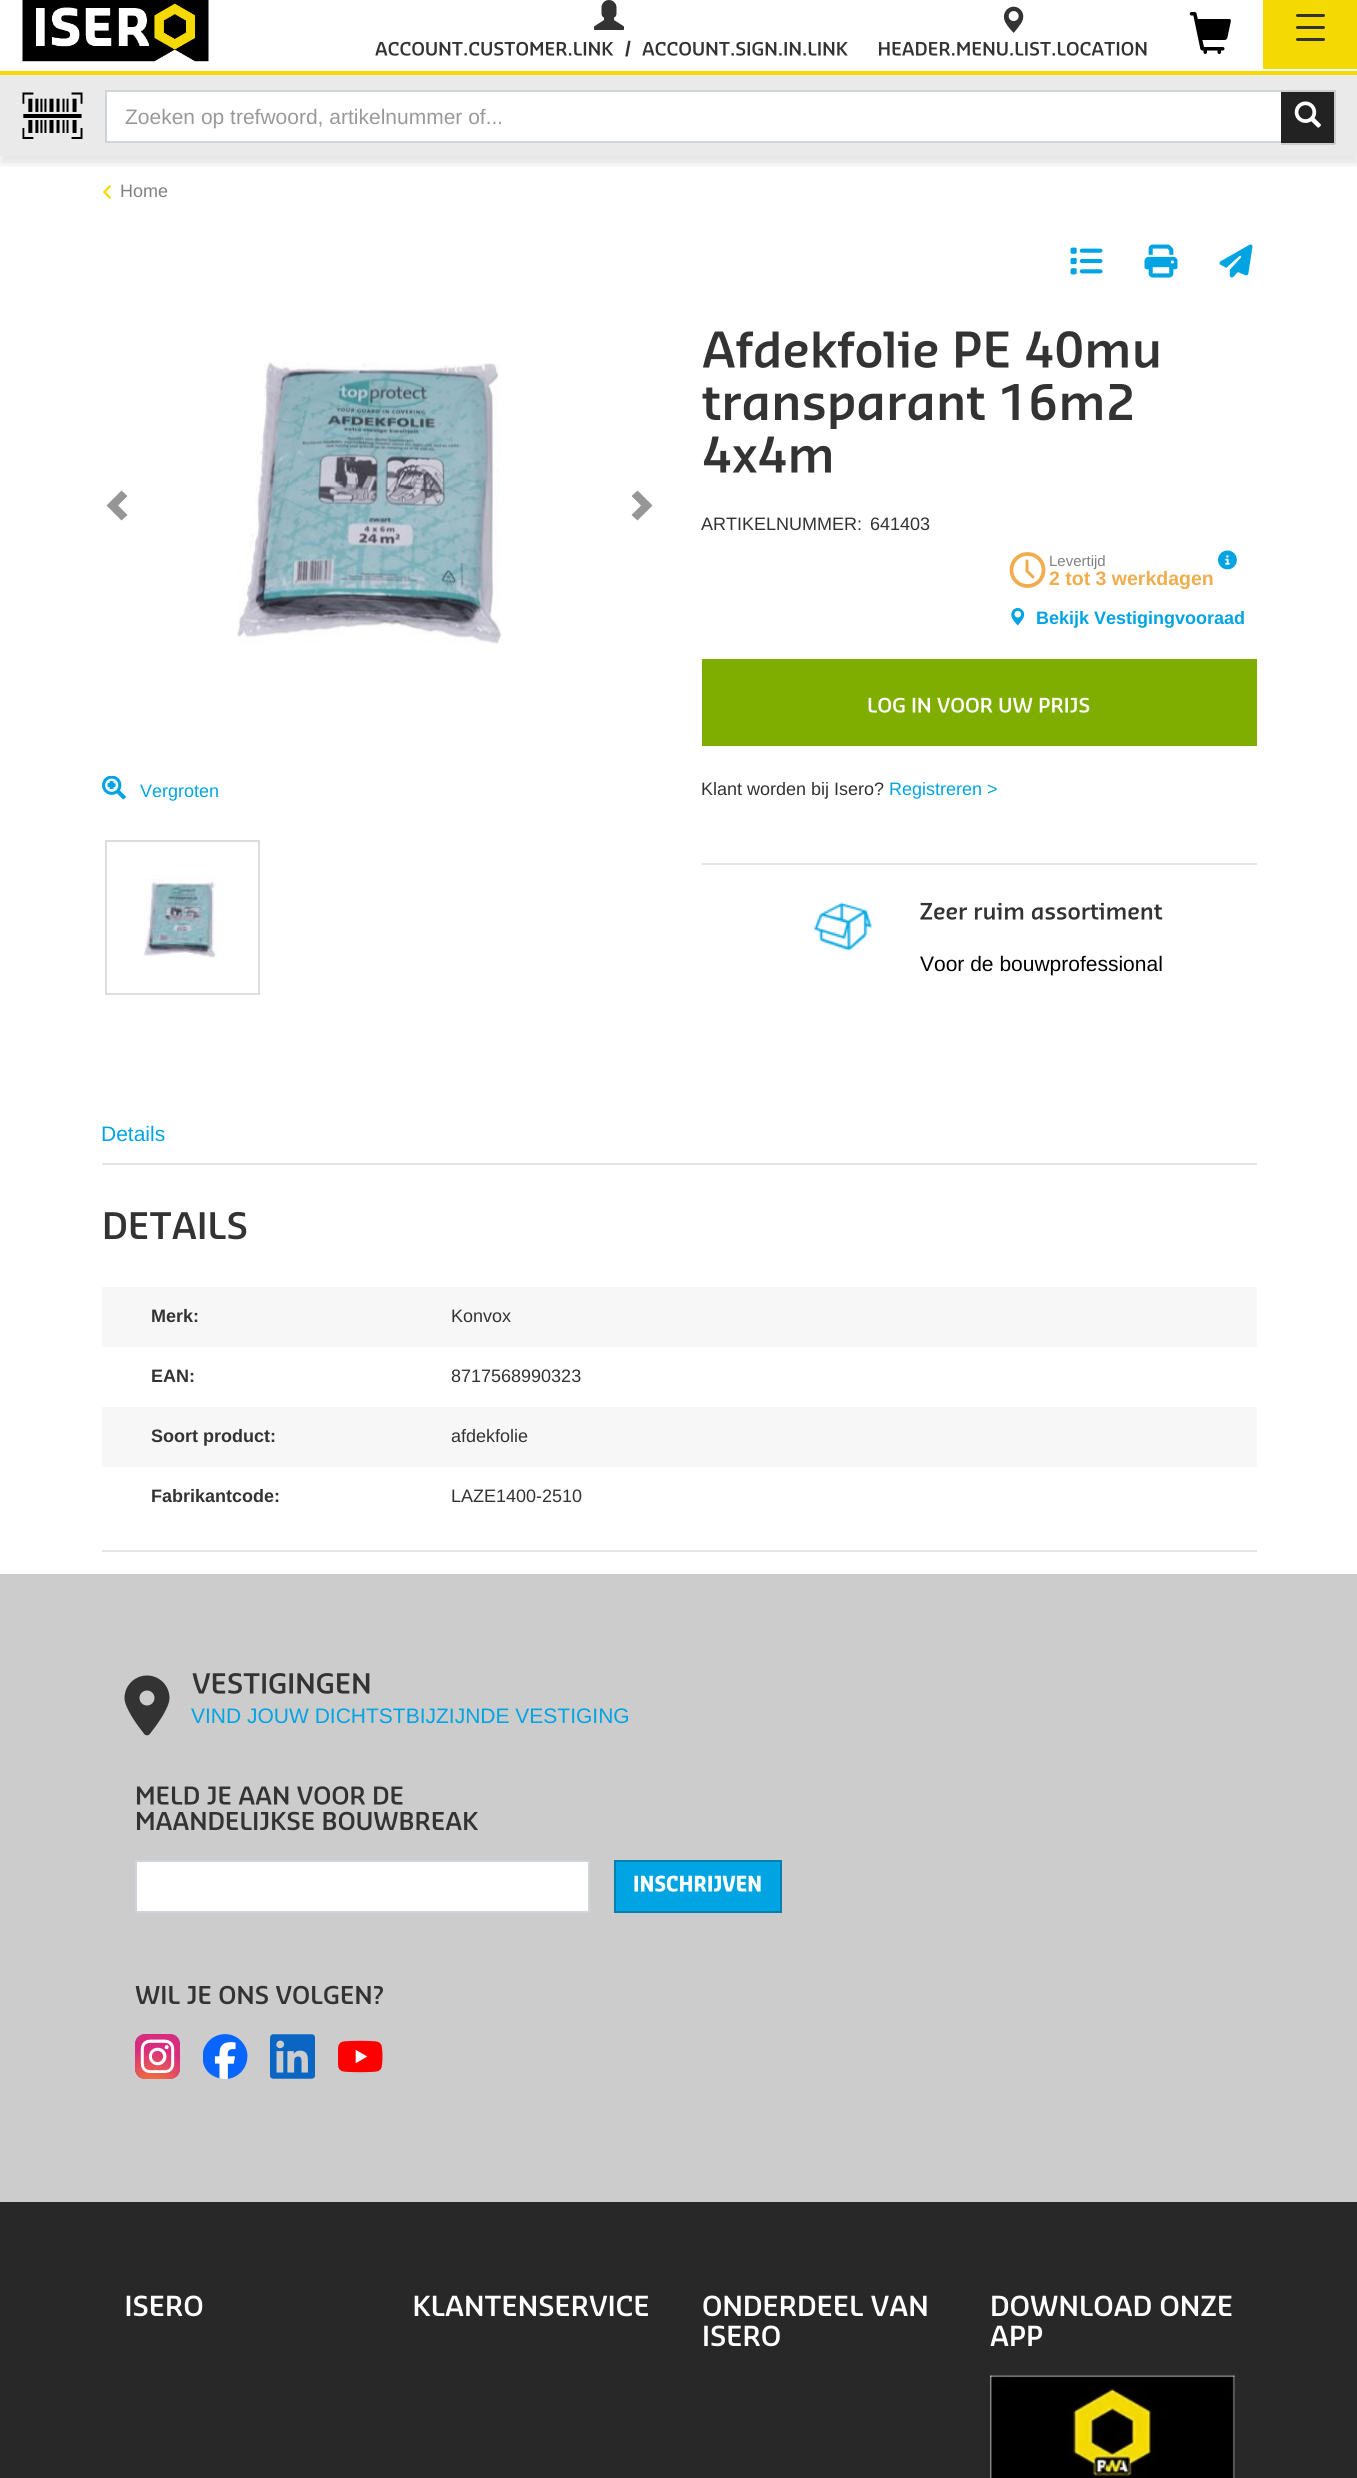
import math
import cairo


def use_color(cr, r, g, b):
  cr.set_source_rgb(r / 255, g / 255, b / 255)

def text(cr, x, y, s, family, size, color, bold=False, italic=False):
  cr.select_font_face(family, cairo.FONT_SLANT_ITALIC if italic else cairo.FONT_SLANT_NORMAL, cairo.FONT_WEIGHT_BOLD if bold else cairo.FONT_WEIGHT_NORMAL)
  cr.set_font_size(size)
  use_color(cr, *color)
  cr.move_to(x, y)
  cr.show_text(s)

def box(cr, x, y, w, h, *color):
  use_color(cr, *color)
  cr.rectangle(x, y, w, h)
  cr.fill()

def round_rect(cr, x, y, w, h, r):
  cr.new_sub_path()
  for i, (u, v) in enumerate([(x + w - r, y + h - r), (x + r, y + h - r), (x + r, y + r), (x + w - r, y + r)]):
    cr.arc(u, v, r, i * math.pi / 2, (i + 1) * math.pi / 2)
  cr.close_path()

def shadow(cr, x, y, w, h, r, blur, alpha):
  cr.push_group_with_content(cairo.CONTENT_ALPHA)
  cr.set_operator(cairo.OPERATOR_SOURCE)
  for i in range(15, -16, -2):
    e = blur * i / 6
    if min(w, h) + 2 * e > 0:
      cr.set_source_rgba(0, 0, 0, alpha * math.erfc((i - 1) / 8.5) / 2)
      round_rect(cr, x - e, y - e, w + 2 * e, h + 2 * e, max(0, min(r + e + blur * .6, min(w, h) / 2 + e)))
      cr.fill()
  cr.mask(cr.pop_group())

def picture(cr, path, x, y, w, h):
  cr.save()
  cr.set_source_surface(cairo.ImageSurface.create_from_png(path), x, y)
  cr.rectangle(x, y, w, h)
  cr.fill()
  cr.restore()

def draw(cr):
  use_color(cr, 255, 255, 255)
  cr.paint()
  cr.save()
  cr.rectangle(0, 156, 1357, 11)
  cr.clip()
  use_color(cr, 0, 0, 0)
  shadow(cr, 0, -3, 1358, 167, 0, 4, 0.1)
  cr.restore()
  box(cr, 0, 71, 1357, 4, 244, 218, 2)
  picture(cr, "img_01.png", 22, 0, 187, 62)
  picture(cr, "img_02.png", 594, 0, 30, 30)
  picture(cr, "img_03.png", 375, 41, 239, 15)
  picture(cr, "img_04.png", 642, 41, 206, 15)
  picture(cr, "img_05.png", 1003, 6, 21, 27)
  picture(cr, "img_06.png", 878, 41, 269, 15)
  picture(cr, "img_07.png", 1189, 12, 42, 42)
  box(cr, 1263, 0, 94, 69, 244, 218, 2)
  use_color(cr, 51, 51, 51)
  round_rect(cr, 1296, 14, 29, 3, 1.5)
  cr.fill()
  round_rect(cr, 1296, 26, 29, 3, 1.5)
  cr.fill()
  round_rect(cr, 1296, 38, 29, 3, 1.5)
  cr.fill()
  box(cr, 0, 75, 1357, 81, 234, 234, 234)
  picture(cr, "img_08.png", 22, 92, 61, 47)
  box(cr, 107, 92, 1174, 49, 255, 255, 255)
  cr.rectangle(106, 91, 1228, 51)
  use_color(cr, 206, 212, 218)
  cr.stroke()
  box(cr, 1281, 92, 53, 51, 34, 34, 34)
  box(cr, 1281, 90, 54, 2, 204, 204, 204)
  box(cr, 1334, 90, 2, 54, 204, 204, 204)
  box(cr, 1281, 143, 54, 2, 204, 204, 204)
  picture(cr, "img_09.png", 1294, 101, 27, 27)
  box(cr, 102, 168, 1155, 1, 255, 255, 255)
  picture(cr, "img_10.png", 103, 185, 8, 14)
  use_color(cr, 150, 150, 151)
  cr.new_path()
  cr.move_to(121.5, 490.5)
  cr.line_to(106.5, 505.5)
  cr.line_to(121.5, 520.5)
  cr.line_to(127.5, 515)
  cr.line_to(118, 505.5)
  cr.line_to(127.5, 496)
  cr.close_path()
  cr.fill()
  picture(cr, "img_11.png", 237, 362, 265, 282)
  cr.new_path()
  cr.move_to(637.5, 490.5)
  cr.line_to(631.5, 496)
  cr.line_to(641, 505.5)
  cr.line_to(631.5, 515)
  cr.line_to(637.5, 520.5)
  cr.line_to(652.5, 505.5)
  cr.close_path()
  cr.fill()
  picture(cr, "img_12.png", 102, 776, 24, 24)
  cr.rectangle(106, 841, 153, 153)
  use_color(cr, 221, 221, 221)
  cr.stroke()
  picture(cr, "img_13.png", 143, 873, 75, 85)
  picture(cr, "img_14.png", 1070, 247, 33, 28)
  picture(cr, "img_15.png", 1144, 244, 34, 34)
  picture(cr, "img_16.png", 1219, 244, 34, 34)
  picture(cr, "img_17.png", 703, 331, 456, 37)
  picture(cr, "img_18.png", 702, 384, 431, 45)
  picture(cr, "img_19.png", 703, 436, 128, 37)
  cr.new_path()
  cr.move_to(1043.5, 570)
  cr.curve_to(1043.5, 579, 1036.5, 586, 1027.5, 586)
  cr.curve_to(1018.5, 586, 1011.5, 579, 1011.5, 570)
  cr.curve_to(1011.5, 561, 1018.5, 554, 1027.5, 554)
  cr.curve_to(1036.5, 554, 1043.5, 561, 1043.5, 570)
  cr.close_path()
  use_color(cr, 240, 173, 78)
  cr.set_line_width(3.8)
  cr.stroke()
  cr.new_path()
  cr.move_to(1033, 577)
  cr.line_to(1027, 571)
  cr.line_to(1027, 561)
  cr.set_line_width(3)
  cr.set_line_cap(cairo.LINE_CAP_ROUND)
  cr.stroke()
  picture(cr, "img_20.png", 1218, 550, 19, 20)
  picture(cr, "img_21.png", 1011, 608, 14, 18)
  box(cr, 702, 659, 555, 87, 127, 173, 0)
  picture(cr, "img_22.png", 868, 697, 222, 16)
  box(cr, 702, 863, 555, 2, 229, 229, 229)
  picture(cr, "img_23.png", 814, 902, 58, 49)
  picture(cr, "img_24.png", 920, 902, 243, 18)
  box(cr, 102, 1163, 1155, 2, 229, 229, 229)
  box(cr, 102, 1550, 1155, 2, 229, 229, 229)
  picture(cr, "img_25.png", 104, 1211, 143, 29)
  box(cr, 102, 1287, 1155, 60, 247, 247, 247)
  box(cr, 102, 1407, 1155, 60, 247, 247, 247)
  box(cr, 0, 1574, 1357, 628, 204, 204, 204)
  picture(cr, "img_26.png", 124, 1675, 46, 61)
  picture(cr, "img_27.png", 192, 1673, 178, 21)
  picture(cr, "img_28.png", 136, 1786, 267, 19)
  picture(cr, "img_29.png", 136, 1811, 342, 20)
  use_color(cr, 255, 255, 255)
  cr.rectangle(136, 1861, 453, 51)
  cr.fill_preserve()
  use_color(cr, 206, 212, 218)
  cr.set_line_width(2)
  cr.set_line_cap(cairo.LINE_CAP_BUTT)
  cr.stroke()
  use_color(cr, 0, 164, 227)
  cr.rectangle(615, 1861, 166, 51)
  cr.fill_preserve()
  use_color(cr, 0, 127, 176)
  cr.stroke()
  picture(cr, "img_30.png", 634, 1875, 127, 17)
  picture(cr, "img_31.png", 135, 1985, 248, 20)
  picture(cr, "img_32.png", 135, 2034, 45, 45)
  picture(cr, "img_33.png", 203, 2034, 45, 45)
  picture(cr, "img_34.png", 270, 2034, 45, 45)
  picture(cr, "img_35.png", 338, 2040, 45, 33)
  box(cr, 0, 2202, 1357, 276, 40, 40, 40)
  picture(cr, "img_36.png", 126, 2295, 77, 22)
  picture(cr, "img_37.png", 414, 2295, 234, 22)
  picture(cr, "img_38.png", 703, 2295, 224, 22)
  picture(cr, "img_39.png", 704, 2325, 76, 22)
  picture(cr, "img_40.png", 992, 2295, 240, 22)
  picture(cr, "img_41.png", 990, 2325, 53, 21)
  picture(cr, "img_42.png", 990, 2375, 245, 103)
  text(cr, 625, 56, "/", "Liberation Sans", 21, (51, 51, 51), bold=True)
  text(cr, 125, 124, "Zoeken op trefwoord, artikelnummer of...", "Liberation Sans", 21, (153, 153, 153))
  text(cr, 120, 197, "Home", "Liberation Sans", 18, (129, 129, 129))
  text(cr, 140, 797, "Vergroten", "Liberation Sans", 18, (0, 164, 227))
  text(cr, 701, 530, "ARTIKELNUMMER:", "Liberation Sans", 18, (51, 51, 51))
  text(cr, 870, 530, "641403", "Liberation Sans", 18, (51, 51, 51))
  text(cr, 1049, 566, "Levertijd", "Liberation Sans", 15, (129, 129, 129))
  text(cr, 1049, 585, "2 tot 3 werkdagen", "Liberation Sans", 19.5, (240, 173, 78), bold=True)
  text(cr, 1036, 624, "Bekijk Vestigingvooraad", "Liberation Sans", 18, (0, 164, 227), bold=True)
  text(cr, 701, 795, "Klant worden bij Isero?", "Liberation Sans", 18, (51, 51, 51))
  text(cr, 889, 795, "Registreren >", "Liberation Sans", 18, (0, 164, 227))
  text(cr, 920, 971, "Voor de bouwprofessional", "Liberation Sans", 21, (0, 0, 0))
  text(cr, 101, 1141, "Details", "Liberation Sans", 21, (0, 164, 227))
  text(cr, 151, 1322, "Merk:", "Liberation Sans", 18, (51, 51, 51), bold=True)
  text(cr, 451, 1322, "Konvox", "Liberation Sans", 18, (51, 51, 51))
  text(cr, 151, 1382, "EAN:", "Liberation Sans", 18, (51, 51, 51), bold=True)
  text(cr, 451, 1382, "8717568990323", "Liberation Sans", 18, (51, 51, 51))
  text(cr, 151, 1442, "Soort product:", "Liberation Sans", 18, (51, 51, 51), bold=True)
  text(cr, 451, 1442, "afdekfolie", "Liberation Sans", 18, (51, 51, 51))
  text(cr, 151, 1502, "Fabrikantcode:", "Liberation Sans", 18, (51, 51, 51), bold=True)
  text(cr, 451, 1502, "LAZE1400-2510", "Liberation Sans", 18, (51, 51, 51))
  text(cr, 191, 1723, "VIND JOUW DICHTSTBIJZIJNDE VESTIGING", "Liberation Sans", 21, (0, 164, 227))


surface = cairo.ImageSurface(cairo.FORMAT_RGB24, 1357, 2478)
cr = cairo.Context(surface)
options = cairo.FontOptions()
options.set_hint_metrics(cairo.HINT_METRICS_OFF)
options.set_hint_style(cairo.HINT_STYLE_NONE)
cr.set_font_options(options)
cr.set_miter_limit(4)
draw(cr)
surface.write_to_png("out.png")
